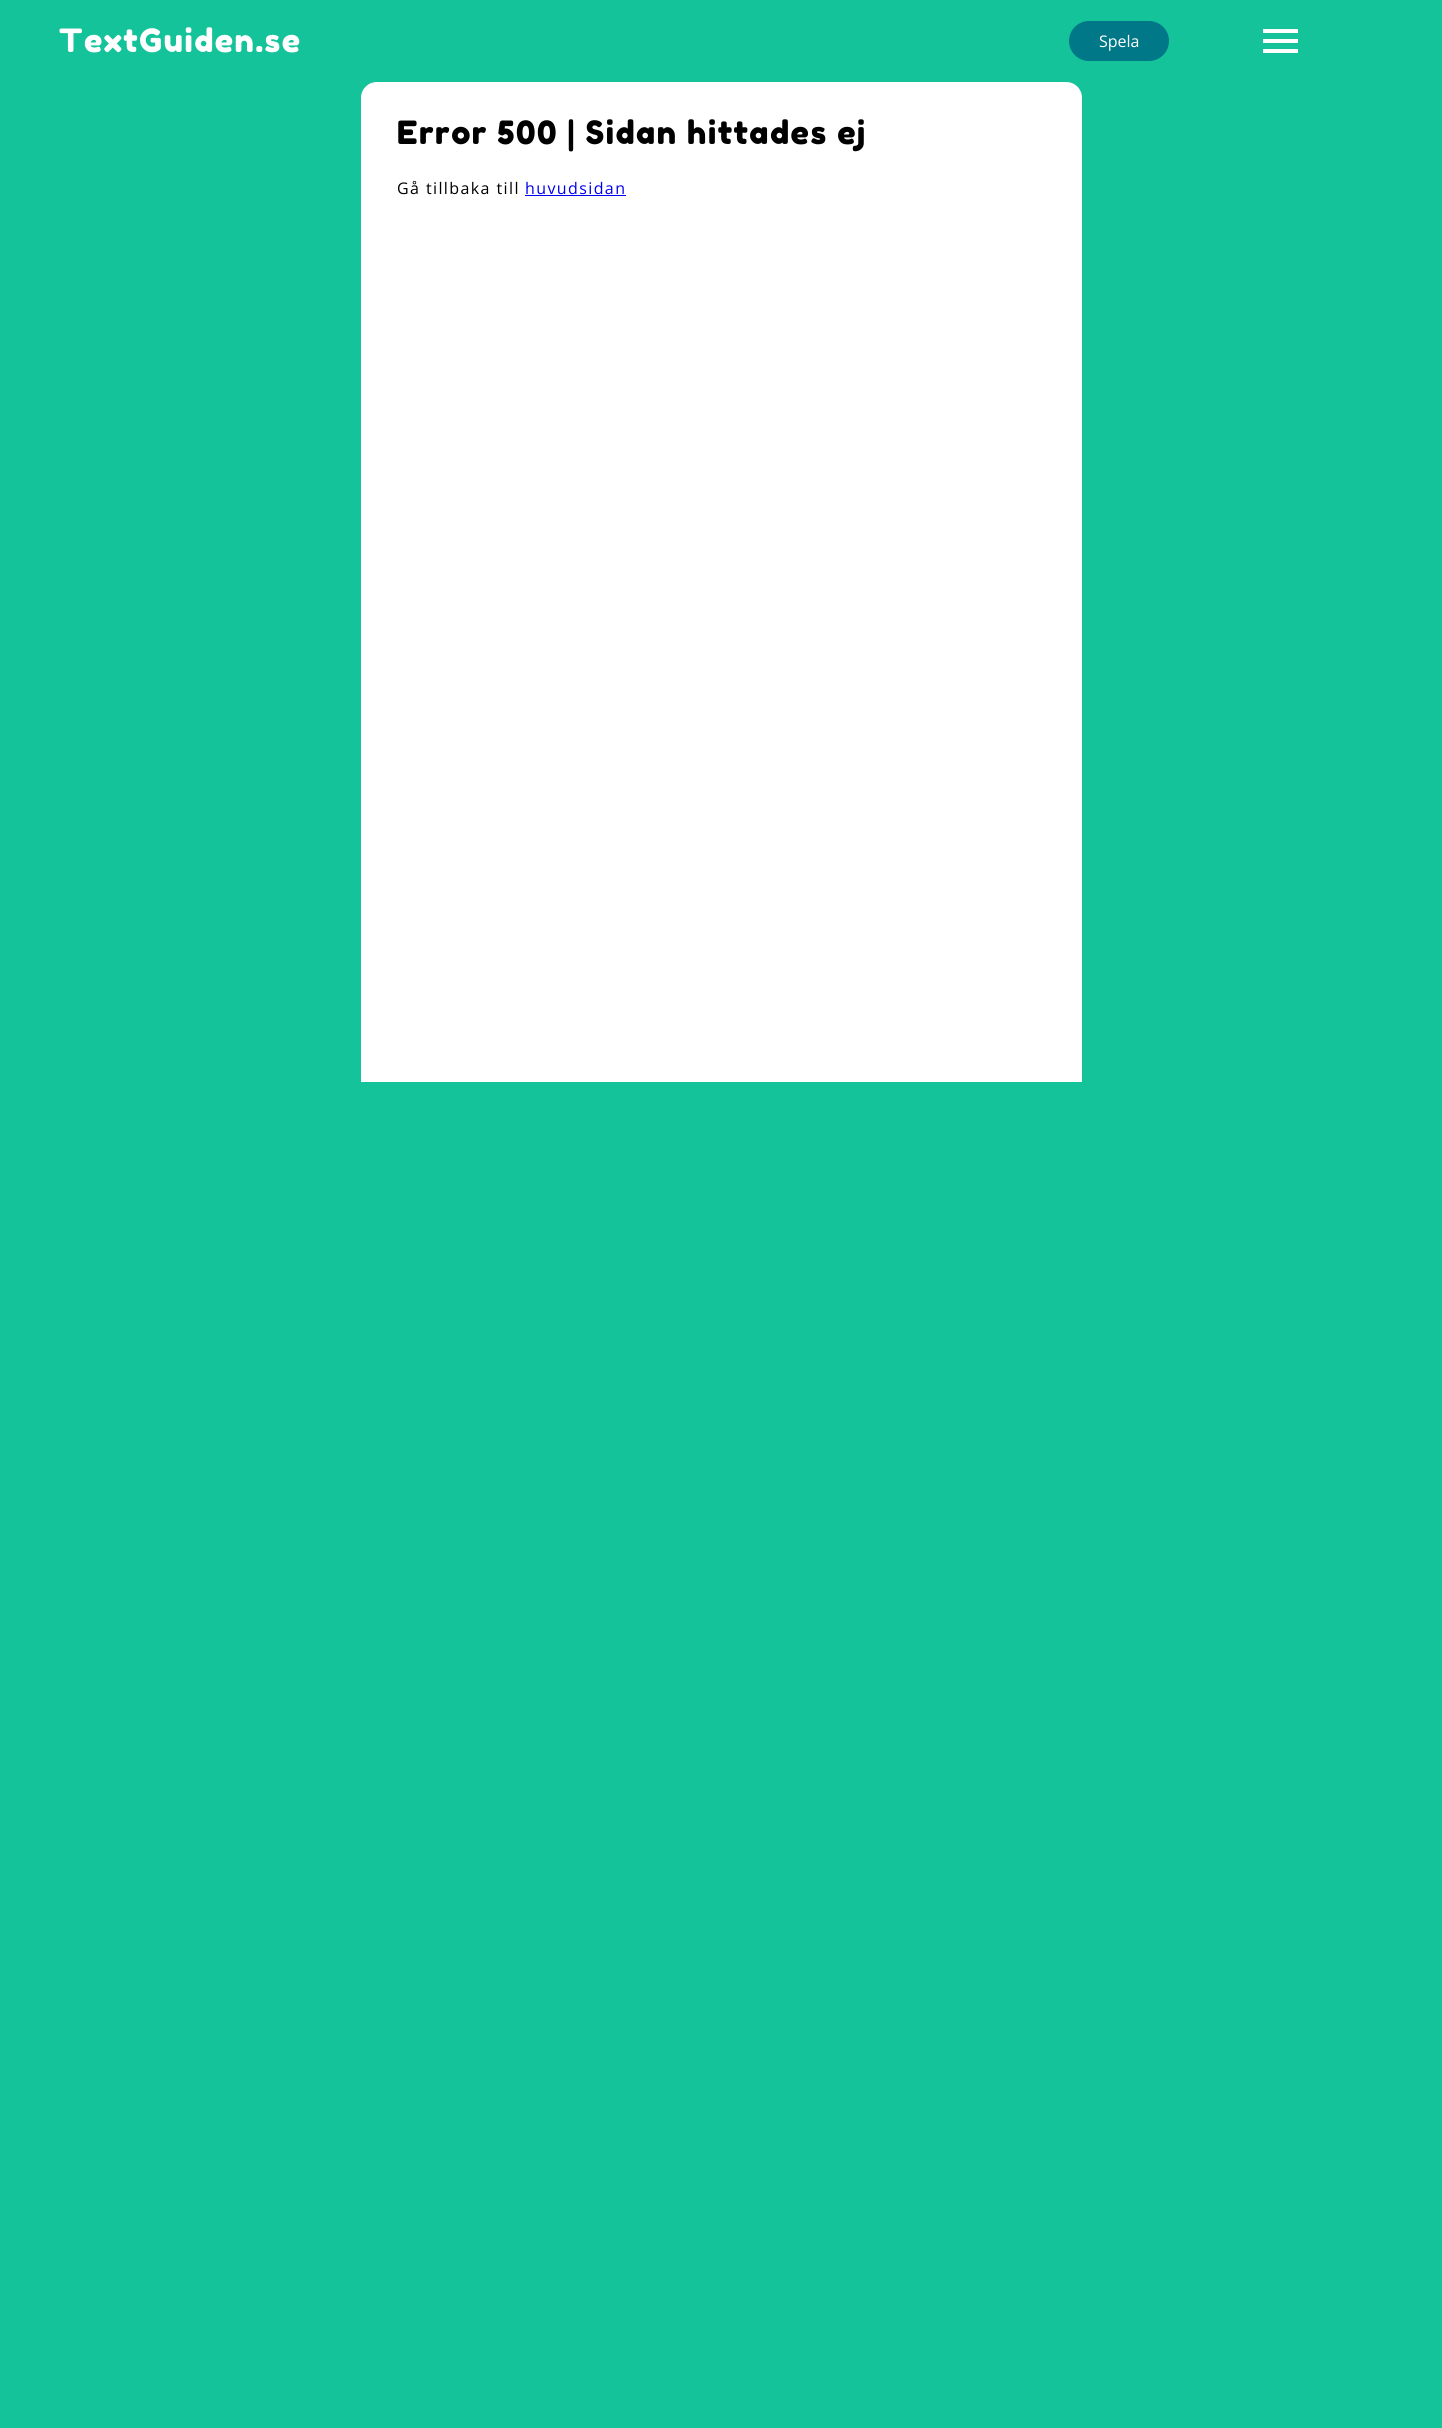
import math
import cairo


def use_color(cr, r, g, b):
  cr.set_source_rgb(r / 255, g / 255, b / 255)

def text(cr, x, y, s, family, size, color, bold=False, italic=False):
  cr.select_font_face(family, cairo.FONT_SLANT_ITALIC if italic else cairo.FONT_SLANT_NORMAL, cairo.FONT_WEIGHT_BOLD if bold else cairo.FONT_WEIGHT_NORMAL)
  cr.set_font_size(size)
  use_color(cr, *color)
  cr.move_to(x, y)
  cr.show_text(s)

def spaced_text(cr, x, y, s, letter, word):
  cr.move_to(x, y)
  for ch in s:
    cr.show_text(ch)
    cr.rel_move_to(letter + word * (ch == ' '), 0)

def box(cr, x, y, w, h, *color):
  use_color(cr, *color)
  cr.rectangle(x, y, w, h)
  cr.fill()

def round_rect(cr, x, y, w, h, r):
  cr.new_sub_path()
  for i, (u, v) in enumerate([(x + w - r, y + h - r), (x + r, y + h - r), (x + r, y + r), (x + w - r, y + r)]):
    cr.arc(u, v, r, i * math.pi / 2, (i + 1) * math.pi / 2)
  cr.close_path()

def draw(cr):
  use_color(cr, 21, 195, 154)
  cr.paint()
  use_color(cr, 0, 120, 136)
  round_rect(cr, 1069, 21, 100, 40, 20)
  cr.fill()
  box(cr, 1263, 29, 35, 4, 255, 255, 255)
  box(cr, 1263, 39, 35, 4, 255, 255, 255)
  box(cr, 1263, 49, 35, 4, 255, 255, 255)
  cr.new_path()
  cr.move_to(377, 82)
  cr.line_to(1066, 82)
  cr.curve_to(1075, 82, 1082, 89, 1082, 98)
  cr.line_to(1082, 1082)
  cr.line_to(361, 1082)
  cr.line_to(361, 98)
  cr.curve_to(361, 89, 368, 82, 377, 82)
  cr.close_path()
  cr.fill()
  box(cr, 525, 195, 101, 1, 0, 0, 238)
  cr.select_font_face("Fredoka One")
  cr.set_font_size(32)
  use_color(cr, 255, 255, 255)
  spaced_text(cr, 59, 52, "TextGuiden.se", 1.5, 0)
  text(cr, 1099, 47, "Spela", "Open Sans", 16, (255, 255, 255))
  cr.select_font_face("Fredoka One")
  cr.set_font_size(32)
  use_color(cr, 0, 0, 0)
  spaced_text(cr, 397, 144, "Error 500 | Sidan hittades ej", 1.5, 0)
  cr.select_font_face("Open Sans")
  cr.set_font_size(16)
  spaced_text(cr, 397, 194, "Gå tillbaka till", 1.4, 0)
  use_color(cr, 0, 0, 238)
  spaced_text(cr, 525, 194, "huvudsidan", 1.4, 0)


surface = cairo.ImageSurface(cairo.FORMAT_RGB24, 1442, 2428)
cr = cairo.Context(surface)
options = cairo.FontOptions()
options.set_hint_metrics(cairo.HINT_METRICS_OFF)
options.set_hint_style(cairo.HINT_STYLE_NONE)
cr.set_font_options(options)
cr.set_miter_limit(4)
draw(cr)
surface.write_to_png("out.png")
